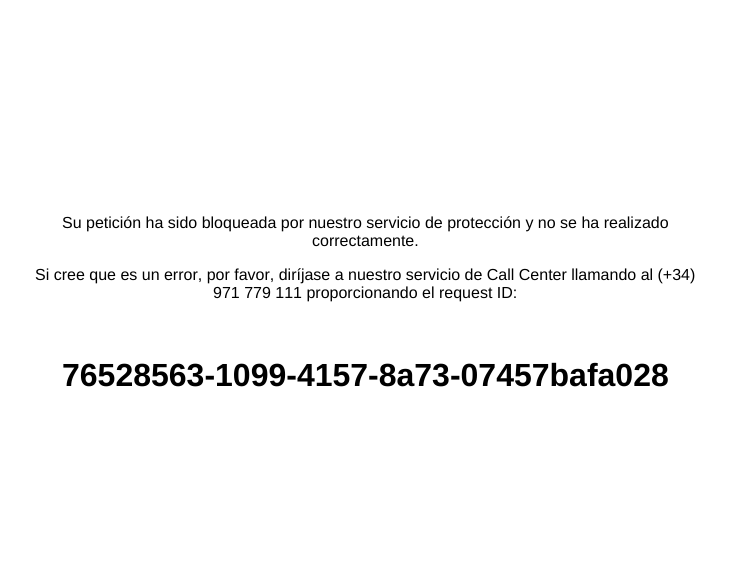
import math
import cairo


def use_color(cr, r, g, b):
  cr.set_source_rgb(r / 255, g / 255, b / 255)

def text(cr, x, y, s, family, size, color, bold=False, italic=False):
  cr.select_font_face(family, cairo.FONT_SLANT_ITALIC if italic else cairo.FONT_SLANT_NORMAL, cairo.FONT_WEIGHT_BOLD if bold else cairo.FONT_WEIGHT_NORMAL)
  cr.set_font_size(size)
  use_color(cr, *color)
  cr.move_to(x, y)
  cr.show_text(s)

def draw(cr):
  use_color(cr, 255, 255, 255)
  cr.paint()
  text(cr, 62, 228, "Su petición ha sido bloqueada por nuestro servicio de protección y no se ha realizado", "Liberation Sans", 16, (0, 0, 0))
  text(cr, 312, 246, "correctamente.", "Liberation Sans", 16, (0, 0, 0))
  text(cr, 35, 280, "Si cree que es un error, por favor, diríjase a nuestro servicio de Call Center llamando al (+34)", "Liberation Sans", 16, (0, 0, 0))
  text(cr, 213, 298, "971 779 111 proporcionando el request ID:", "Liberation Sans", 16, (0, 0, 0))
  text(cr, 62, 386, "76528563-1099-4157-8a73-07457bafa028", "Liberation Sans", 32, (0, 0, 0), bold=True)


surface = cairo.ImageSurface(cairo.FORMAT_RGB24, 731, 577)
cr = cairo.Context(surface)
options = cairo.FontOptions()
options.set_hint_metrics(cairo.HINT_METRICS_OFF)
options.set_hint_style(cairo.HINT_STYLE_NONE)
cr.set_font_options(options)
cr.set_miter_limit(4)
draw(cr)
surface.write_to_png("out.png")
